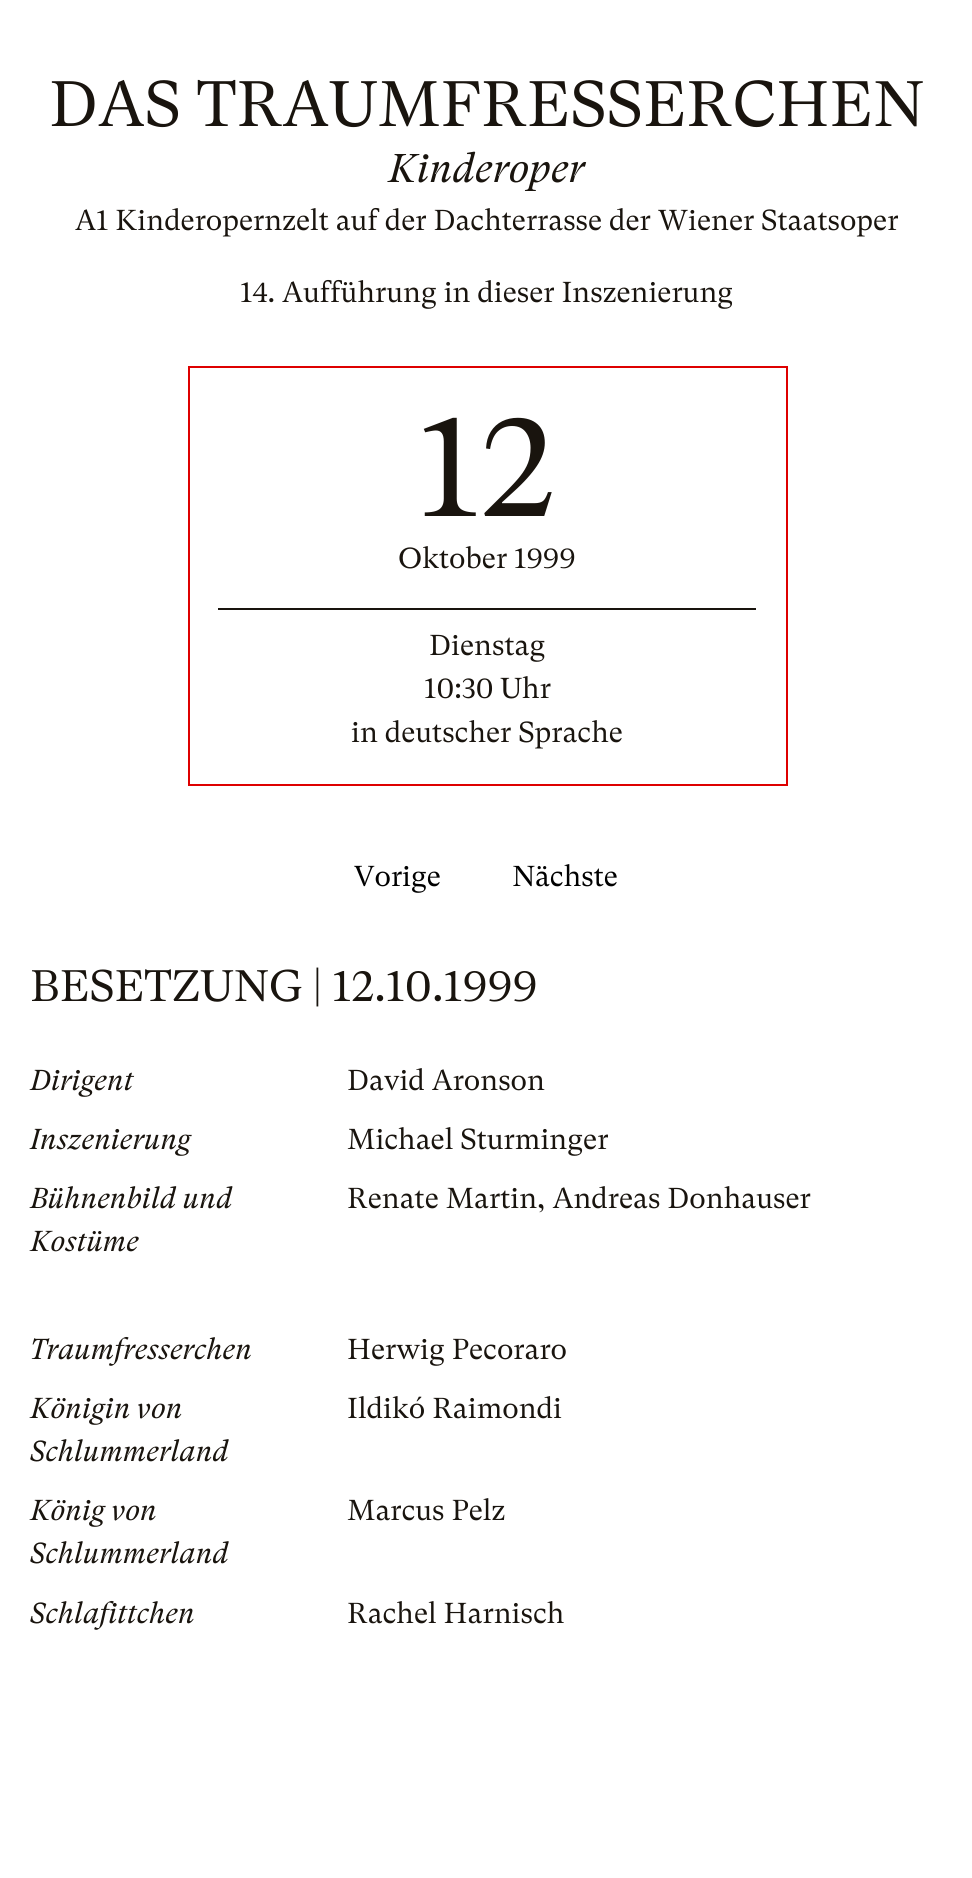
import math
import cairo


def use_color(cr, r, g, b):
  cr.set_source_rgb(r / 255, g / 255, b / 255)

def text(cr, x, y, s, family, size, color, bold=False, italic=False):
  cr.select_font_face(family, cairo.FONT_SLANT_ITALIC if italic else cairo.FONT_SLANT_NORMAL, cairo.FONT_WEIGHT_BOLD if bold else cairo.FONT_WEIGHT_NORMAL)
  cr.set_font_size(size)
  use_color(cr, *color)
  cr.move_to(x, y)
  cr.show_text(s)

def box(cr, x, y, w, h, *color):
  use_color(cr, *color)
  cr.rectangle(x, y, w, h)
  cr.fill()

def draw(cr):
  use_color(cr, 255, 255, 255)
  cr.paint()
  cr.rectangle(189, 367, 598, 418)
  use_color(cr, 222, 0, 0)
  cr.stroke()
  box(cr, 218, 608, 538, 2, 25, 20, 14)
  text(cr, 49, 126, "DAS TRAUMFRESSERCHEN", "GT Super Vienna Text", 64, (25, 20, 14))
  text(cr, 388, 182, "Kinderoper", "GT Super Vienna Text", 40, (25, 20, 14), italic=True)
  text(cr, 75, 230, "A1 Kinderopernzelt auf der Dachterrasse der Wiener Staatsoper", "GT Super Vienna Text", 28.8, (25, 20, 14))
  text(cr, 240, 302, "14. Aufführung in dieser Inszenierung", "GT Super Vienna Text", 28.8, (25, 20, 14))
  text(cr, 418, 516, "12", "GT Super Vienna Text", 144, (25, 20, 14))
  text(cr, 398, 568, "Oktober 1999", "GT Super Vienna Text", 28.8, (25, 20, 14))
  text(cr, 429, 655, "Dienstag", "GT Super Vienna Text", 28.8, (25, 20, 14))
  text(cr, 424, 698, "10:30 Uhr", "GT Super Vienna Text", 28.8, (25, 20, 14))
  text(cr, 351, 742, "in deutscher Sprache", "GT Super Vienna Text", 28.8, (25, 20, 14))
  text(cr, 354, 886, "Vorige", "GT Super Vienna Text", 28.8, (0, 0, 0))
  text(cr, 512, 886, "Nächste", "GT Super Vienna Text", 28.8, (0, 0, 0))
  text(cr, 30, 1001, "BESETZUNG | 12.10.1999", "GT Super Vienna Text", 44, (25, 20, 14))
  text(cr, 30, 1090, "Dirigent", "GT Super Vienna Text", 28.8, (25, 20, 14), italic=True)
  text(cr, 347, 1090, "David Aronson", "GT Super Vienna Text", 28.8, (25, 20, 14))
  text(cr, 30, 1149, "Inszenierung", "GT Super Vienna Text", 28.8, (25, 20, 14), italic=True)
  text(cr, 347, 1149, "Michael Sturminger", "GT Super Vienna Text", 28.8, (25, 20, 14))
  text(cr, 30, 1208, "Bühnenbild und", "GT Super Vienna Text", 28.8, (25, 20, 14), italic=True)
  text(cr, 30, 1251, "Kostüme", "GT Super Vienna Text", 28.8, (25, 20, 14), italic=True)
  text(cr, 347, 1208, "Renate Martin, Andreas Donhauser", "GT Super Vienna Text", 28.8, (25, 20, 14))
  text(cr, 30, 1359, "Traumfresserchen", "GT Super Vienna Text", 28.8, (25, 20, 14), italic=True)
  text(cr, 347, 1359, "Herwig Pecoraro", "GT Super Vienna Text", 28.8, (25, 20, 14))
  text(cr, 30, 1418, "Königin von", "GT Super Vienna Text", 28.8, (25, 20, 14), italic=True)
  text(cr, 30, 1461, "Schlummerland", "GT Super Vienna Text", 28.8, (25, 20, 14), italic=True)
  text(cr, 347, 1418, "Ildikó Raimondi", "GT Super Vienna Text", 28.8, (25, 20, 14))
  text(cr, 30, 1520, "König von", "GT Super Vienna Text", 28.8, (25, 20, 14), italic=True)
  text(cr, 30, 1563, "Schlummerland", "GT Super Vienna Text", 28.8, (25, 20, 14), italic=True)
  text(cr, 347, 1520, "Marcus Pelz", "GT Super Vienna Text", 28.8, (25, 20, 14))
  text(cr, 30, 1623, "Schlafittchen", "GT Super Vienna Text", 28.8, (25, 20, 14), italic=True)
  text(cr, 347, 1623, "Rachel Harnisch", "GT Super Vienna Text", 28.8, (25, 20, 14))


surface = cairo.ImageSurface(cairo.FORMAT_RGB24, 972, 1878)
cr = cairo.Context(surface)
options = cairo.FontOptions()
options.set_hint_metrics(cairo.HINT_METRICS_OFF)
options.set_hint_style(cairo.HINT_STYLE_NONE)
cr.set_font_options(options)
cr.set_miter_limit(4)
draw(cr)
surface.write_to_png("out.png")
